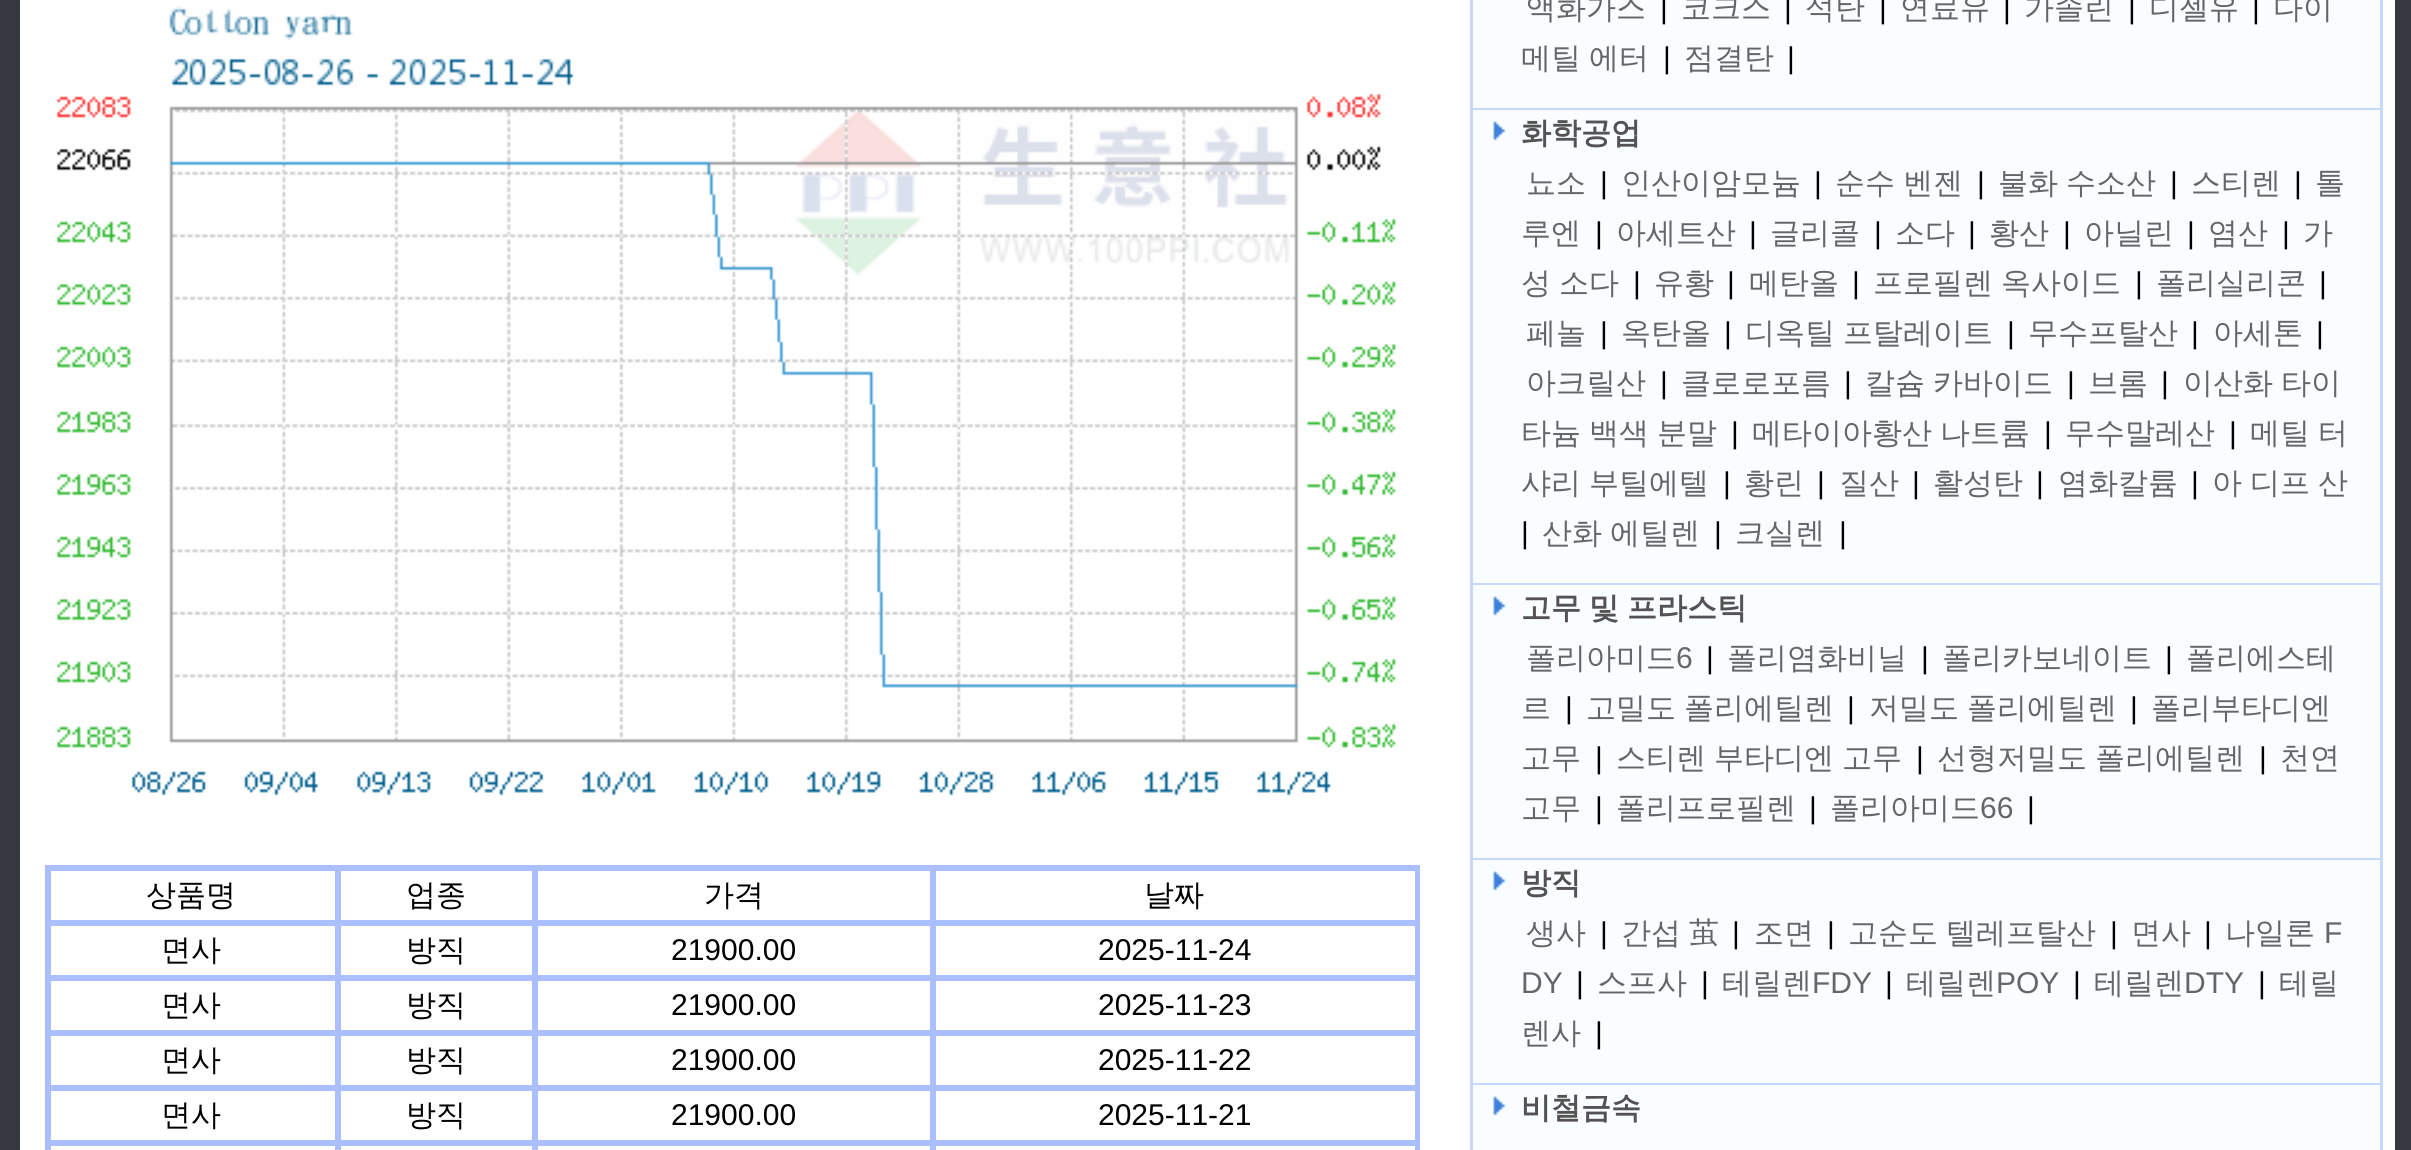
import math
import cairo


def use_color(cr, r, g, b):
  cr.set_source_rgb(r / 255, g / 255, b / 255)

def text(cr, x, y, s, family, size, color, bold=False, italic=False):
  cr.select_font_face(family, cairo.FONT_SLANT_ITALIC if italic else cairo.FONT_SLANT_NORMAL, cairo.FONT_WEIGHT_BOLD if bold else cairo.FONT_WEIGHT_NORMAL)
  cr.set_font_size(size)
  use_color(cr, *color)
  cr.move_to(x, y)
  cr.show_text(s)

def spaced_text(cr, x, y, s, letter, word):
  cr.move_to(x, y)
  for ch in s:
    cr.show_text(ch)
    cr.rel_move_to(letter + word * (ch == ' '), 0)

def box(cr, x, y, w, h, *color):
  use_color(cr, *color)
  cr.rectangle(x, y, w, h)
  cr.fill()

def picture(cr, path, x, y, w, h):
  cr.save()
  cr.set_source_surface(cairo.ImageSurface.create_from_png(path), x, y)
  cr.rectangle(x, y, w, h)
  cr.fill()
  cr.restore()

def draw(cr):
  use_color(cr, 54, 56, 64)
  cr.paint()
  box(cr, 20, 0, 2375, 1150, 255, 255, 255)
  picture(cr, "img_01.png", 56, 6, 1340, 790)
  cr.rectangle(46.5, 866.5, 1372, 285)
  use_color(cr, 171, 191, 254)
  cr.set_line_width(3)
  cr.stroke()
  cr.rectangle(49.5, 869.5, 287, 52)
  cr.stroke()
  cr.rectangle(339.5, 869.5, 194, 52)
  cr.stroke()
  cr.rectangle(536.5, 869.5, 395, 52)
  cr.stroke()
  cr.rectangle(934.5, 869.5, 482, 52)
  cr.stroke()
  cr.rectangle(49.5, 924.5, 287, 52)
  cr.stroke()
  cr.rectangle(339.5, 924.5, 194, 52)
  cr.stroke()
  cr.rectangle(536.5, 924.5, 395, 52)
  cr.stroke()
  cr.rectangle(934.5, 924.5, 482, 52)
  cr.stroke()
  cr.rectangle(49.5, 979.5, 287, 52)
  cr.stroke()
  cr.rectangle(339.5, 979.5, 194, 52)
  cr.stroke()
  cr.rectangle(536.5, 979.5, 395, 52)
  cr.stroke()
  cr.rectangle(934.5, 979.5, 482, 52)
  cr.stroke()
  cr.rectangle(49.5, 1034.5, 287, 52)
  cr.stroke()
  cr.rectangle(339.5, 1034.5, 194, 52)
  cr.stroke()
  cr.rectangle(536.5, 1034.5, 395, 52)
  cr.stroke()
  cr.rectangle(934.5, 1034.5, 482, 52)
  cr.stroke()
  cr.rectangle(49.5, 1089.5, 287, 52)
  cr.stroke()
  cr.rectangle(339.5, 1089.5, 194, 52)
  cr.stroke()
  cr.rectangle(536.5, 1089.5, 395, 52)
  cr.stroke()
  cr.rectangle(934.5, 1089.5, 482, 52)
  cr.stroke()
  cr.rectangle(49.5, 1144.5, 287, 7)
  cr.stroke()
  cr.rectangle(339.5, 1144.5, 194, 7)
  cr.stroke()
  cr.rectangle(536.5, 1144.5, 395, 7)
  cr.stroke()
  cr.rectangle(934.5, 1144.5, 482, 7)
  cr.stroke()
  box(cr, 1473, 0, 907, 108, 249, 253, 255)
  box(cr, 2380, 0, 3, 1150, 198, 216, 255)
  box(cr, 1470, 108, 913, 2, 198, 216, 255)
  box(cr, 1470, 0, 3, 110, 198, 216, 255)
  box(cr, 1473, 110, 907, 473, 249, 253, 255)
  box(cr, 1470, 583, 913, 2, 198, 216, 255)
  box(cr, 1470, 110, 3, 475, 198, 216, 255)
  picture(cr, "img_02.png", 1493, 121, 13, 20)
  box(cr, 1473, 585, 907, 273, 249, 253, 255)
  box(cr, 1470, 858, 913, 2, 198, 216, 255)
  box(cr, 1470, 585, 3, 275, 198, 216, 255)
  picture(cr, "img_02.png", 1493, 596, 13, 20)
  box(cr, 1473, 860, 907, 223, 249, 253, 255)
  box(cr, 1470, 1083, 913, 2, 198, 216, 255)
  box(cr, 1470, 860, 3, 290, 198, 216, 255)
  picture(cr, "img_02.png", 1493, 871, 13, 20)
  box(cr, 1473, 1085, 907, 65, 249, 253, 255)
  picture(cr, "img_02.png", 1493, 1096, 13, 20)
  text(cr, 146, 905, "상품명", "WenQuanYi Zen Hei Medium", 30, (0, 0, 0))
  text(cr, 406, 905, "업종", "WenQuanYi Zen Hei Medium", 30, (0, 0, 0))
  text(cr, 704, 905, "가격", "WenQuanYi Zen Hei Medium", 30, (0, 0, 0))
  text(cr, 1144, 905, "날짜", "WenQuanYi Zen Hei Medium", 30, (0, 0, 0))
  text(cr, 161, 960, "면사", "WenQuanYi Zen Hei Medium", 30, (0, 0, 0))
  text(cr, 406, 960, "방직", "WenQuanYi Zen Hei Medium", 30, (0, 0, 0))
  text(cr, 671, 960, "21900.00", "Liberation Sans", 30, (0, 0, 0))
  text(cr, 1098, 960, "2025-11-24", "Liberation Sans", 30, (0, 0, 0))
  text(cr, 161, 1015, "면사", "WenQuanYi Zen Hei Medium", 30, (0, 0, 0))
  text(cr, 406, 1015, "방직", "WenQuanYi Zen Hei Medium", 30, (0, 0, 0))
  text(cr, 671, 1015, "21900.00", "Liberation Sans", 30, (0, 0, 0))
  text(cr, 1098, 1015, "2025-11-23", "Liberation Sans", 30, (0, 0, 0))
  text(cr, 161, 1070, "면사", "WenQuanYi Zen Hei Medium", 30, (0, 0, 0))
  text(cr, 406, 1070, "방직", "WenQuanYi Zen Hei Medium", 30, (0, 0, 0))
  text(cr, 671, 1070, "21900.00", "Liberation Sans", 30, (0, 0, 0))
  text(cr, 1098, 1070, "2025-11-22", "Liberation Sans", 30, (0, 0, 0))
  text(cr, 161, 1125, "면사", "WenQuanYi Zen Hei Medium", 30, (0, 0, 0))
  text(cr, 406, 1125, "방직", "WenQuanYi Zen Hei Medium", 30, (0, 0, 0))
  text(cr, 671, 1125, "21900.00", "Liberation Sans", 30, (0, 0, 0))
  text(cr, 1098, 1125, "2025-11-21", "Liberation Sans", 30, (0, 0, 0))
  text(cr, 1526, 18, "액화가스", "WenQuanYi Zen Hei Medium", 30, (102, 102, 102))
  text(cr, 1660, 18, "|", "Liberation Sans", 30, (0, 0, 0))
  text(cr, 1681, 18, "코크스", "WenQuanYi Zen Hei Medium", 30, (102, 102, 102))
  text(cr, 1784, 18, "|", "Liberation Sans", 30, (0, 0, 0))
  text(cr, 1805, 18, "석탄", "WenQuanYi Zen Hei Medium", 30, (102, 102, 102))
  text(cr, 1879, 18, "|", "Liberation Sans", 30, (0, 0, 0))
  text(cr, 1900, 18, "연료유", "WenQuanYi Zen Hei Medium", 30, (102, 102, 102))
  text(cr, 2003, 18, "|", "Liberation Sans", 30, (0, 0, 0))
  text(cr, 2024, 18, "가솔린", "WenQuanYi Zen Hei Medium", 30, (102, 102, 102))
  text(cr, 2128, 18, "|", "Liberation Sans", 30, (0, 0, 0))
  text(cr, 2149, 18, "디젤유", "WenQuanYi Zen Hei Medium", 30, (102, 102, 102))
  text(cr, 2252, 18, "|", "Liberation Sans", 30, (0, 0, 0))
  text(cr, 2273, 18, "다이", "WenQuanYi Zen Hei Medium", 30, (102, 102, 102))
  spaced_text(cr, 1521, 68, "메틸 에터", 0, -1)
  text(cr, 1663, 68, "|", "Liberation Sans", 30, (0, 0, 0))
  text(cr, 1684, 68, "점결탄", "WenQuanYi Zen Hei Medium", 30, (102, 102, 102))
  text(cr, 1787, 68, "|", "Liberation Sans", 30, (0, 0, 0))
  text(cr, 1521, 143, "화학공업", "WenQuanYi Zen Hei", 30, (84, 82, 82), bold=True)
  text(cr, 1526, 193, "뇨소", "WenQuanYi Zen Hei Medium", 30, (102, 102, 102))
  text(cr, 1600, 193, "|", "Liberation Sans", 30, (0, 0, 0))
  text(cr, 1621, 193, "인산이암모늄", "WenQuanYi Zen Hei Medium", 30, (102, 102, 102))
  text(cr, 1814, 193, "|", "Liberation Sans", 30, (0, 0, 0))
  cr.select_font_face("WenQuanYi Zen Hei Medium")
  use_color(cr, 102, 102, 102)
  spaced_text(cr, 1835, 193, "순수 벤젠", 0, -1)
  text(cr, 1977, 193, "|", "Liberation Sans", 30, (0, 0, 0))
  cr.select_font_face("WenQuanYi Zen Hei Medium")
  use_color(cr, 102, 102, 102)
  spaced_text(cr, 1998, 193, "불화 수소산", 0, -1)
  text(cr, 2170, 193, "|", "Liberation Sans", 30, (0, 0, 0))
  text(cr, 2191, 193, "스티렌", "WenQuanYi Zen Hei Medium", 30, (102, 102, 102))
  text(cr, 2294, 193, "|", "Liberation Sans", 30, (0, 0, 0))
  text(cr, 2315, 193, "톨", "WenQuanYi Zen Hei Medium", 30, (102, 102, 102))
  text(cr, 1521, 243, "루엔", "WenQuanYi Zen Hei Medium", 30, (102, 102, 102))
  text(cr, 1595, 243, "|", "Liberation Sans", 30, (0, 0, 0))
  text(cr, 1616, 243, "아세트산", "WenQuanYi Zen Hei Medium", 30, (102, 102, 102))
  text(cr, 1749, 243, "|", "Liberation Sans", 30, (0, 0, 0))
  text(cr, 1770, 243, "글리콜", "WenQuanYi Zen Hei Medium", 30, (102, 102, 102))
  text(cr, 1874, 243, "|", "Liberation Sans", 30, (0, 0, 0))
  text(cr, 1895, 243, "소다", "WenQuanYi Zen Hei Medium", 30, (102, 102, 102))
  text(cr, 1968, 243, "|", "Liberation Sans", 30, (0, 0, 0))
  text(cr, 1989, 243, "황산", "WenQuanYi Zen Hei Medium", 30, (102, 102, 102))
  text(cr, 2063, 243, "|", "Liberation Sans", 30, (0, 0, 0))
  text(cr, 2084, 243, "아닐린", "WenQuanYi Zen Hei Medium", 30, (102, 102, 102))
  text(cr, 2187, 243, "|", "Liberation Sans", 30, (0, 0, 0))
  text(cr, 2208, 243, "염산", "WenQuanYi Zen Hei Medium", 30, (102, 102, 102))
  text(cr, 2282, 243, "|", "Liberation Sans", 30, (0, 0, 0))
  text(cr, 2303, 243, "가", "WenQuanYi Zen Hei Medium", 30, (102, 102, 102))
  spaced_text(cr, 1521, 293, "성 소다", 0, -1)
  text(cr, 1633, 293, "|", "Liberation Sans", 30, (0, 0, 0))
  text(cr, 1654, 293, "유황", "WenQuanYi Zen Hei Medium", 30, (102, 102, 102))
  text(cr, 1727, 293, "|", "Liberation Sans", 30, (0, 0, 0))
  text(cr, 1749, 293, "메탄올", "WenQuanYi Zen Hei Medium", 30, (102, 102, 102))
  text(cr, 1852, 293, "|", "Liberation Sans", 30, (0, 0, 0))
  cr.select_font_face("WenQuanYi Zen Hei Medium")
  use_color(cr, 102, 102, 102)
  spaced_text(cr, 1873, 293, "프로필렌 옥사이드", 0, -1)
  text(cr, 2135, 293, "|", "Liberation Sans", 30, (0, 0, 0))
  text(cr, 2156, 293, "폴리실리콘", "WenQuanYi Zen Hei Medium", 30, (102, 102, 102))
  text(cr, 2319, 293, "|", "Liberation Sans", 30, (0, 0, 0))
  text(cr, 1526, 343, "페놀", "WenQuanYi Zen Hei Medium", 30, (102, 102, 102))
  text(cr, 1600, 343, "|", "Liberation Sans", 30, (0, 0, 0))
  text(cr, 1621, 343, "옥탄올", "WenQuanYi Zen Hei Medium", 30, (102, 102, 102))
  text(cr, 1724, 343, "|", "Liberation Sans", 30, (0, 0, 0))
  cr.select_font_face("WenQuanYi Zen Hei Medium")
  use_color(cr, 102, 102, 102)
  spaced_text(cr, 1745, 343, "디옥틸 프탈레이트", 0, -1)
  text(cr, 2007, 343, "|", "Liberation Sans", 30, (0, 0, 0))
  text(cr, 2028, 343, "무수프탈산", "WenQuanYi Zen Hei Medium", 30, (102, 102, 102))
  text(cr, 2191, 343, "|", "Liberation Sans", 30, (0, 0, 0))
  text(cr, 2213, 343, "아세톤", "WenQuanYi Zen Hei Medium", 30, (102, 102, 102))
  text(cr, 2316, 343, "|", "Liberation Sans", 30, (0, 0, 0))
  text(cr, 1526, 393, "아크릴산", "WenQuanYi Zen Hei Medium", 30, (102, 102, 102))
  text(cr, 1660, 393, "|", "Liberation Sans", 30, (0, 0, 0))
  text(cr, 1681, 393, "클로로포름", "WenQuanYi Zen Hei Medium", 30, (102, 102, 102))
  text(cr, 1844, 393, "|", "Liberation Sans", 30, (0, 0, 0))
  cr.select_font_face("WenQuanYi Zen Hei Medium")
  use_color(cr, 102, 102, 102)
  spaced_text(cr, 1865, 393, "칼슘 카바이드", 0, -1)
  text(cr, 2067, 393, "|", "Liberation Sans", 30, (0, 0, 0))
  text(cr, 2088, 393, "브롬", "WenQuanYi Zen Hei Medium", 30, (102, 102, 102))
  text(cr, 2161, 393, "|", "Liberation Sans", 30, (0, 0, 0))
  cr.select_font_face("WenQuanYi Zen Hei Medium")
  use_color(cr, 102, 102, 102)
  spaced_text(cr, 2183, 393, "이산화 타이", 0, -1)
  spaced_text(cr, 1521, 443, "타늄 백색 분말", 0, -1)
  text(cr, 1731, 443, "|", "Liberation Sans", 30, (0, 0, 0))
  cr.select_font_face("WenQuanYi Zen Hei Medium")
  use_color(cr, 102, 102, 102)
  spaced_text(cr, 1752, 443, "메타이아황산 나트륨", 0, -1)
  text(cr, 2044, 443, "|", "Liberation Sans", 30, (0, 0, 0))
  text(cr, 2065, 443, "무수말레산", "WenQuanYi Zen Hei Medium", 30, (102, 102, 102))
  text(cr, 2229, 443, "|", "Liberation Sans", 30, (0, 0, 0))
  cr.select_font_face("WenQuanYi Zen Hei Medium")
  use_color(cr, 102, 102, 102)
  spaced_text(cr, 2250, 443, "메틸 터", 0, -1)
  spaced_text(cr, 1521, 493, "샤리 부틸에텔", 0, -1)
  text(cr, 1723, 493, "|", "Liberation Sans", 30, (0, 0, 0))
  text(cr, 1744, 493, "황린", "WenQuanYi Zen Hei Medium", 30, (102, 102, 102))
  text(cr, 1817, 493, "|", "Liberation Sans", 30, (0, 0, 0))
  text(cr, 1839, 493, "질산", "WenQuanYi Zen Hei Medium", 30, (102, 102, 102))
  text(cr, 1912, 493, "|", "Liberation Sans", 30, (0, 0, 0))
  text(cr, 1933, 493, "활성탄", "WenQuanYi Zen Hei Medium", 30, (102, 102, 102))
  text(cr, 2036, 493, "|", "Liberation Sans", 30, (0, 0, 0))
  text(cr, 2058, 493, "염화칼륨", "WenQuanYi Zen Hei Medium", 30, (102, 102, 102))
  text(cr, 2191, 493, "|", "Liberation Sans", 30, (0, 0, 0))
  cr.select_font_face("WenQuanYi Zen Hei Medium")
  use_color(cr, 102, 102, 102)
  spaced_text(cr, 2212, 493, "아 디프 산", 0, -1)
  text(cr, 1521, 543, "|", "Liberation Sans", 30, (0, 0, 0))
  cr.select_font_face("WenQuanYi Zen Hei Medium")
  use_color(cr, 102, 102, 102)
  spaced_text(cr, 1542, 543, "산화 에틸렌", 0, -1)
  text(cr, 1714, 543, "|", "Liberation Sans", 30, (0, 0, 0))
  text(cr, 1735, 543, "크실렌", "WenQuanYi Zen Hei Medium", 30, (102, 102, 102))
  text(cr, 1839, 543, "|", "Liberation Sans", 30, (0, 0, 0))
  cr.select_font_face("WenQuanYi Zen Hei", cairo.FONT_SLANT_NORMAL, cairo.FONT_WEIGHT_BOLD)
  use_color(cr, 84, 82, 82)
  spaced_text(cr, 1521, 618, "고무 및 프라스틱", 0, -1)
  text(cr, 1526, 668, "폴리아미드", "WenQuanYi Zen Hei Medium", 30, (102, 102, 102))
  text(cr, 1676, 668, "6", "Liberation Sans", 30, (102, 102, 102))
  text(cr, 1706, 668, "|", "Liberation Sans", 30, (0, 0, 0))
  text(cr, 1727, 668, "폴리염화비닐", "WenQuanYi Zen Hei Medium", 30, (102, 102, 102))
  text(cr, 1921, 668, "|", "Liberation Sans", 30, (0, 0, 0))
  text(cr, 1942, 668, "폴리카보네이트", "WenQuanYi Zen Hei Medium", 30, (102, 102, 102))
  text(cr, 2165, 668, "|", "Liberation Sans", 30, (0, 0, 0))
  text(cr, 2186, 668, "폴리에스테", "WenQuanYi Zen Hei Medium", 30, (102, 102, 102))
  text(cr, 1521, 718, "르", "WenQuanYi Zen Hei Medium", 30, (102, 102, 102))
  text(cr, 1565, 718, "|", "Liberation Sans", 30, (0, 0, 0))
  cr.select_font_face("WenQuanYi Zen Hei Medium")
  use_color(cr, 102, 102, 102)
  spaced_text(cr, 1586, 718, "고밀도 폴리에틸렌", 0, -1)
  text(cr, 1847, 718, "|", "Liberation Sans", 30, (0, 0, 0))
  cr.select_font_face("WenQuanYi Zen Hei Medium")
  use_color(cr, 102, 102, 102)
  spaced_text(cr, 1869, 718, "저밀도 폴리에틸렌", 0, -1)
  text(cr, 2130, 718, "|", "Liberation Sans", 30, (0, 0, 0))
  text(cr, 2151, 718, "폴리부타디엔", "WenQuanYi Zen Hei Medium", 30, (102, 102, 102))
  text(cr, 1521, 768, "고무", "WenQuanYi Zen Hei Medium", 30, (102, 102, 102))
  text(cr, 1595, 768, "|", "Liberation Sans", 30, (0, 0, 0))
  cr.select_font_face("WenQuanYi Zen Hei Medium")
  use_color(cr, 102, 102, 102)
  spaced_text(cr, 1616, 768, "스티렌 부타디엔 고무", 0, -1)
  text(cr, 1916, 768, "|", "Liberation Sans", 30, (0, 0, 0))
  cr.select_font_face("WenQuanYi Zen Hei Medium")
  use_color(cr, 102, 102, 102)
  spaced_text(cr, 1937, 768, "선형저밀도 폴리에틸렌", 0, -1)
  text(cr, 2259, 768, "|", "Liberation Sans", 30, (0, 0, 0))
  text(cr, 2280, 768, "천연", "WenQuanYi Zen Hei Medium", 30, (102, 102, 102))
  text(cr, 1521, 818, "고무", "WenQuanYi Zen Hei Medium", 30, (102, 102, 102))
  text(cr, 1595, 818, "|", "Liberation Sans", 30, (0, 0, 0))
  text(cr, 1616, 818, "폴리프로필렌", "WenQuanYi Zen Hei Medium", 30, (102, 102, 102))
  text(cr, 1809, 818, "|", "Liberation Sans", 30, (0, 0, 0))
  text(cr, 1830, 818, "폴리아미드", "WenQuanYi Zen Hei Medium", 30, (102, 102, 102))
  text(cr, 1980, 818, "66", "Liberation Sans", 30, (102, 102, 102))
  text(cr, 2027, 818, "|", "Liberation Sans", 30, (0, 0, 0))
  text(cr, 1521, 893, "방직", "WenQuanYi Zen Hei", 30, (84, 82, 82), bold=True)
  text(cr, 1526, 943, "생사", "WenQuanYi Zen Hei Medium", 30, (102, 102, 102))
  text(cr, 1600, 943, "|", "Liberation Sans", 30, (0, 0, 0))
  cr.select_font_face("WenQuanYi Zen Hei Medium")
  use_color(cr, 102, 102, 102)
  spaced_text(cr, 1621, 943, "간섭 茧", 0, -1)
  text(cr, 1732, 943, "|", "Liberation Sans", 30, (0, 0, 0))
  text(cr, 1754, 943, "조면", "WenQuanYi Zen Hei Medium", 30, (102, 102, 102))
  text(cr, 1827, 943, "|", "Liberation Sans", 30, (0, 0, 0))
  cr.select_font_face("WenQuanYi Zen Hei Medium")
  use_color(cr, 102, 102, 102)
  spaced_text(cr, 1848, 943, "고순도 텔레프탈산", 0, -1)
  text(cr, 2110, 943, "|", "Liberation Sans", 30, (0, 0, 0))
  text(cr, 2131, 943, "면사", "WenQuanYi Zen Hei Medium", 30, (102, 102, 102))
  text(cr, 2204, 943, "|", "Liberation Sans", 30, (0, 0, 0))
  text(cr, 2225, 943, "나일론", "WenQuanYi Zen Hei Medium", 30, (102, 102, 102))
  text(cr, 2324, 943, "F", "Liberation Sans", 30, (102, 102, 102))
  text(cr, 1521, 993, "DY", "Liberation Sans", 30, (102, 102, 102))
  text(cr, 1576, 993, "|", "Liberation Sans", 30, (0, 0, 0))
  text(cr, 1597, 993, "스프사", "WenQuanYi Zen Hei Medium", 30, (102, 102, 102))
  text(cr, 1701, 993, "|", "Liberation Sans", 30, (0, 0, 0))
  text(cr, 1722, 993, "테릴렌", "WenQuanYi Zen Hei Medium", 30, (102, 102, 102))
  text(cr, 1812, 993, "FDY", "Liberation Sans", 30, (102, 102, 102))
  text(cr, 1885, 993, "|", "Liberation Sans", 30, (0, 0, 0))
  text(cr, 1906, 993, "테릴렌", "WenQuanYi Zen Hei Medium", 30, (102, 102, 102))
  text(cr, 1996, 993, "POY", "Liberation Sans", 30, (102, 102, 102))
  text(cr, 2073, 993, "|", "Liberation Sans", 30, (0, 0, 0))
  text(cr, 2094, 993, "테릴렌", "WenQuanYi Zen Hei Medium", 30, (102, 102, 102))
  text(cr, 2184, 993, "DTY", "Liberation Sans", 30, (102, 102, 102))
  text(cr, 2258, 993, "|", "Liberation Sans", 30, (0, 0, 0))
  text(cr, 2279, 993, "테릴", "WenQuanYi Zen Hei Medium", 30, (102, 102, 102))
  text(cr, 1521, 1043, "렌사", "WenQuanYi Zen Hei Medium", 30, (102, 102, 102))
  text(cr, 1595, 1043, "|", "Liberation Sans", 30, (0, 0, 0))
  text(cr, 1521, 1118, "비철금속", "WenQuanYi Zen Hei", 30, (84, 82, 82), bold=True)


surface = cairo.ImageSurface(cairo.FORMAT_RGB24, 2411, 1150)
cr = cairo.Context(surface)
options = cairo.FontOptions()
options.set_hint_metrics(cairo.HINT_METRICS_OFF)
options.set_hint_style(cairo.HINT_STYLE_NONE)
cr.set_font_options(options)
cr.set_miter_limit(4)
draw(cr)
surface.write_to_png("out.png")
